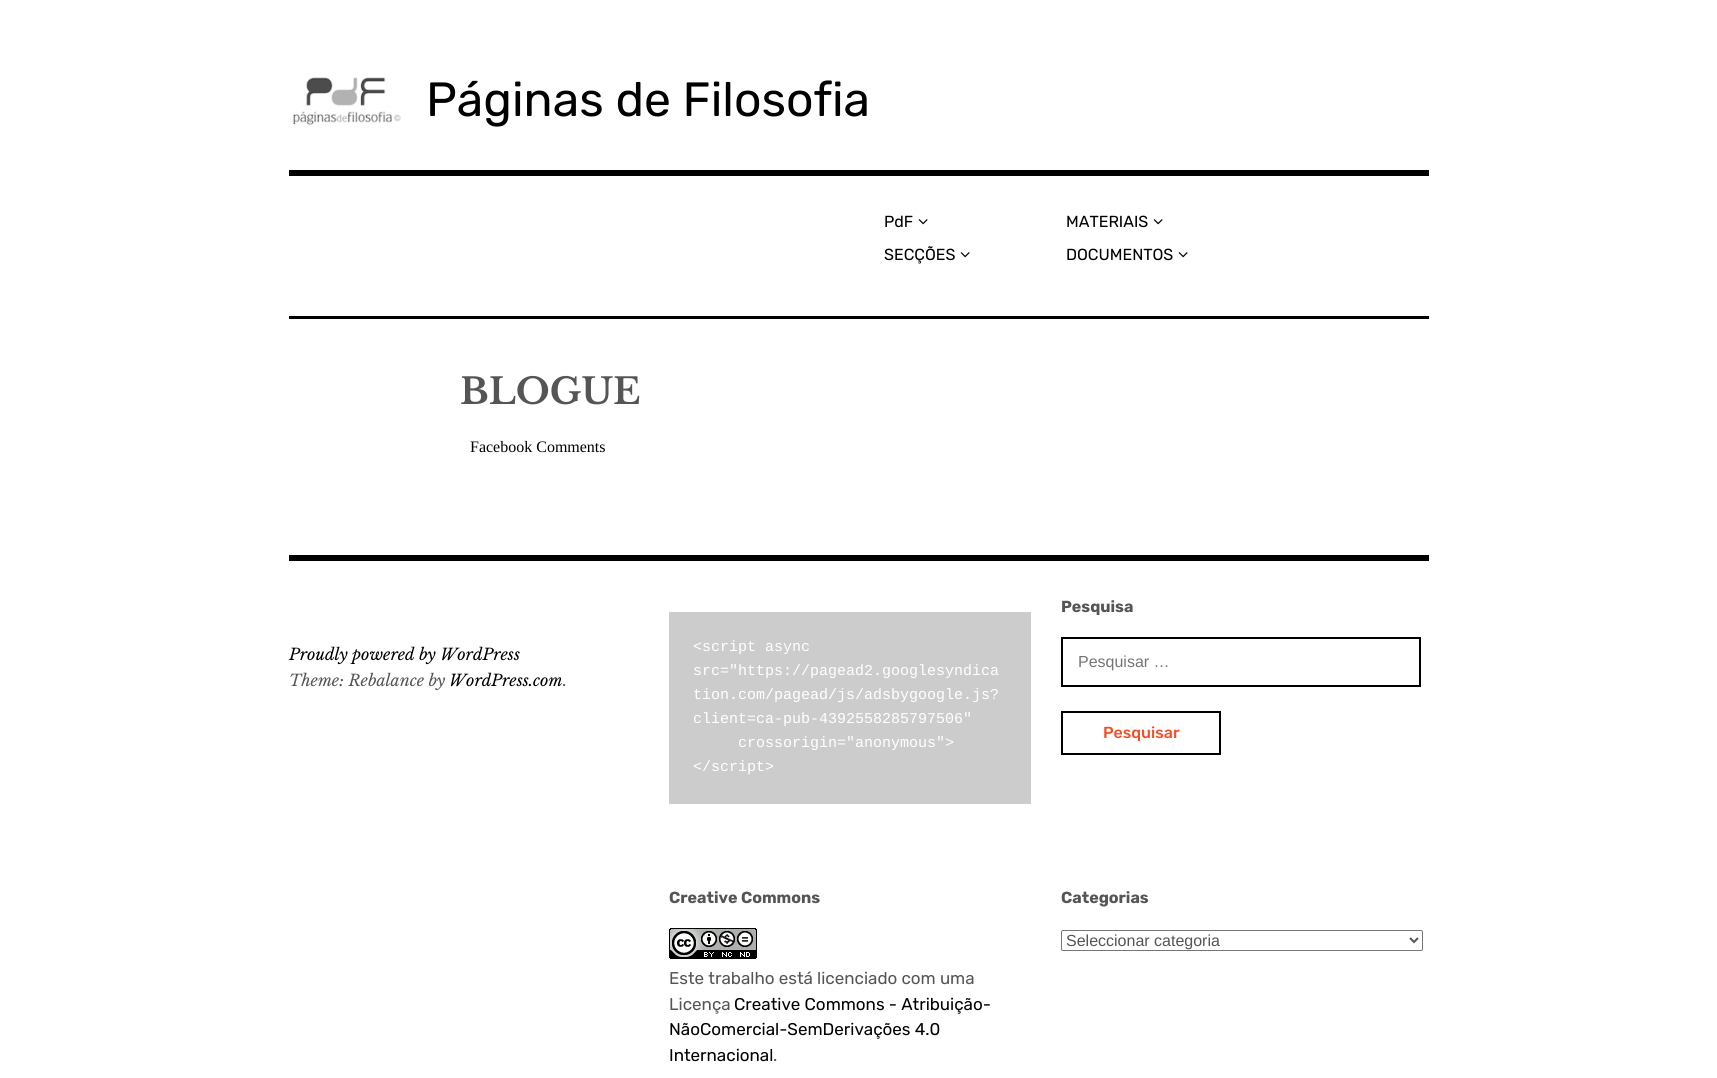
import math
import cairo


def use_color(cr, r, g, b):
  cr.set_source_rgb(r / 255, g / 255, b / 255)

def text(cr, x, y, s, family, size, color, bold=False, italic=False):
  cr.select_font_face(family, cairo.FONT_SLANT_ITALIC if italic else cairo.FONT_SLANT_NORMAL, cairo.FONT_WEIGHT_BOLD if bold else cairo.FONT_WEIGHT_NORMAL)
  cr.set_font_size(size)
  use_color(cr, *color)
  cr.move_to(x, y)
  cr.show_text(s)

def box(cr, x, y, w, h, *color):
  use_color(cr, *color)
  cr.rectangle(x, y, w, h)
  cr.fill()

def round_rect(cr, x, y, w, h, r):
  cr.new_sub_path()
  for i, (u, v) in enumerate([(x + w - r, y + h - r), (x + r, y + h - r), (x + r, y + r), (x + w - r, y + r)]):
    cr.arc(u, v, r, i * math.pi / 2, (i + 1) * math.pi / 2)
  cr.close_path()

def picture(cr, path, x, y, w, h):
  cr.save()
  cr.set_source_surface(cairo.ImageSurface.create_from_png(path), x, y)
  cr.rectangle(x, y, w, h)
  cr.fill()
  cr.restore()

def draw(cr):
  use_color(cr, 255, 255, 255)
  cr.paint()
  box(cr, 289, 170, 1140, 6, 0, 0, 0)
  picture(cr, "img_01.png", 293, 77, 108, 48)
  picture(cr, "img_02.png", 918, 219, 10, 6)
  picture(cr, "img_02.png", 960, 252, 10, 6)
  picture(cr, "img_02.png", 1153, 219, 10, 6)
  picture(cr, "img_02.png", 1178, 252, 10, 6)
  box(cr, 289, 316, 1140, 3, 0, 0, 0)
  box(cr, 289, 555, 1140, 6, 0, 0, 0)
  box(cr, 669, 612, 362, 192, 204, 204, 204)
  cr.rectangle(1062, 638, 358, 48)
  use_color(cr, 0, 0, 0)
  cr.stroke()
  cr.rectangle(1062, 712, 158, 42)
  cr.stroke()
  picture(cr, "img_03.png", 669, 928, 88, 31)
  round_rect(cr, 1061.5, 930.5, 361, 20, 1.5)
  use_color(cr, 118, 118, 118)
  cr.set_line_width(1)
  cr.stroke()
  cr.new_path()
  cr.move_to(1410, 938)
  cr.line_to(1414, 942)
  cr.line_to(1418, 938)
  use_color(cr, 85, 85, 85)
  cr.set_line_width(2)
  cr.stroke()
  text(cr, 426, 116, "Páginas de Filosofia", "Rubik", 48, (0, 0, 0))
  text(cr, 884, 227, "PdF", "Rubik", 16, (0, 0, 0))
  text(cr, 884, 260, "SECÇÕES", "Rubik", 16, (0, 0, 0))
  text(cr, 1066, 227, "MATERIAIS", "Rubik", 16, (0, 0, 0))
  text(cr, 1066, 260, "DOCUMENTOS", "Rubik", 16, (0, 0, 0))
  text(cr, 460, 404, "BLOGUE", "Libre Baskerville", 36, (85, 85, 85), bold=True)
  text(cr, 470, 452, "Facebook Comments", "Liberation Serif", 16, (0, 0, 0))
  text(cr, 289, 660, "Proudly powered by WordPress", "Libre Baskerville", 16, (0, 0, 0), italic=True)
  text(cr, 289, 686, "Theme: Rebalance by", "Libre Baskerville", 16, (85, 85, 85), italic=True)
  text(cr, 449, 686, "WordPress.com", "Libre Baskerville", 16, (0, 0, 0), italic=True)
  text(cr, 563, 686, ".", "Libre Baskerville", 16, (85, 85, 85), italic=True)
  text(cr, 693, 651, "<script async", "Liberation Mono", 15, (255, 255, 255))
  text(cr, 693, 675, "src=\"https://pagead2.googlesyndica", "Liberation Mono", 15, (255, 255, 255))
  text(cr, 693, 699, "tion.com/pagead/js/adsbygoogle.js?", "Liberation Mono", 15, (255, 255, 255))
  text(cr, 693, 723, "client=ca-pub-4392558285797506\"", "Liberation Mono", 15, (255, 255, 255))
  text(cr, 738, 747, "crossorigin=\"anonymous\">", "Liberation Mono", 15, (255, 255, 255))
  text(cr, 693, 771, "</script>", "Liberation Mono", 15, (255, 255, 255))
  text(cr, 1061, 612, "Pesquisa", "Rubik", 16, (85, 85, 85), bold=True)
  text(cr, 1078, 667, "Pesquisar …", "Liberation Sans", 16, (117, 117, 117))
  text(cr, 1103, 738, "Pesquisar", "Rubik Medium", 16, (243, 80, 41))
  text(cr, 669, 903, "Creative Commons", "Rubik", 16, (85, 85, 85), bold=True)
  text(cr, 669, 984, "Este trabalho está licenciado com uma", "Rubik", 17, (85, 85, 85))
  text(cr, 669, 1010, "Licença", "Rubik", 17, (85, 85, 85))
  text(cr, 734, 1010, "Creative Commons - Atribuição-", "Rubik", 17, (0, 0, 0))
  text(cr, 669, 1035, "NãoComercial-SemDerivações 4.0", "Rubik", 17, (0, 0, 0))
  text(cr, 669, 1061, "Internacional", "Rubik", 17, (0, 0, 0))
  text(cr, 773, 1061, ".", "Rubik", 17, (85, 85, 85))
  text(cr, 1061, 903, "Categorias", "Rubik", 16, (85, 85, 85), bold=True)
  text(cr, 1066, 946, "Seleccionar categoria", "Liberation Sans", 16, (85, 85, 85))


surface = cairo.ImageSurface(cairo.FORMAT_RGB24, 1717, 1078)
cr = cairo.Context(surface)
options = cairo.FontOptions()
options.set_hint_metrics(cairo.HINT_METRICS_OFF)
options.set_hint_style(cairo.HINT_STYLE_NONE)
cr.set_font_options(options)
cr.set_miter_limit(4)
draw(cr)
surface.write_to_png("out.png")
